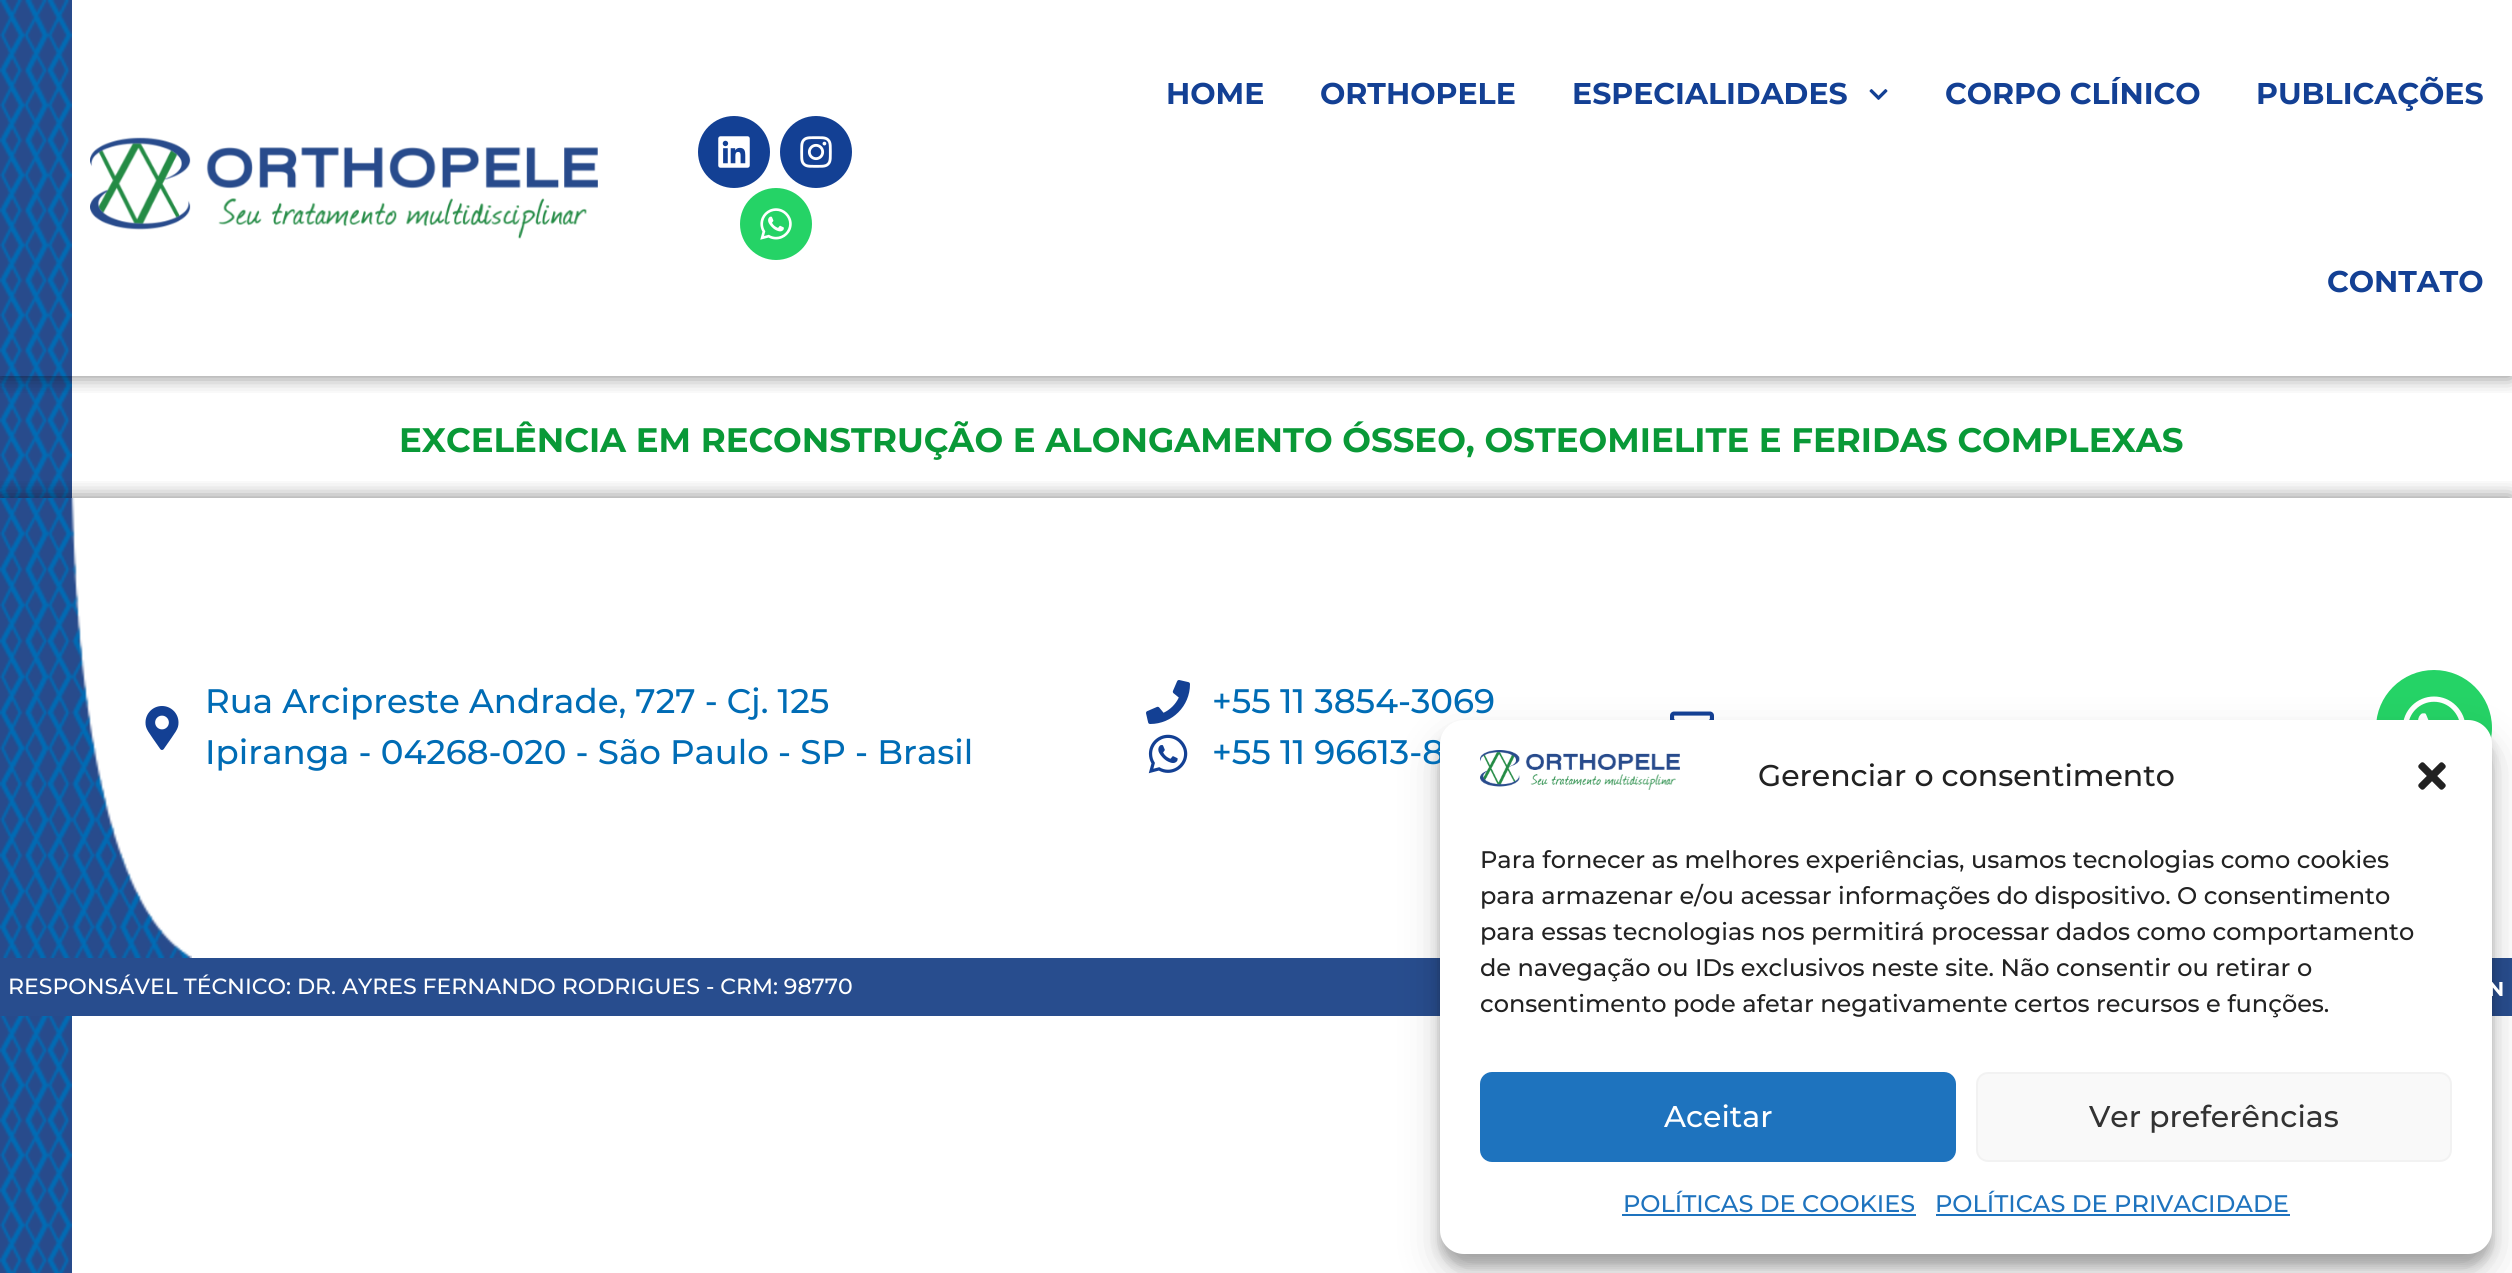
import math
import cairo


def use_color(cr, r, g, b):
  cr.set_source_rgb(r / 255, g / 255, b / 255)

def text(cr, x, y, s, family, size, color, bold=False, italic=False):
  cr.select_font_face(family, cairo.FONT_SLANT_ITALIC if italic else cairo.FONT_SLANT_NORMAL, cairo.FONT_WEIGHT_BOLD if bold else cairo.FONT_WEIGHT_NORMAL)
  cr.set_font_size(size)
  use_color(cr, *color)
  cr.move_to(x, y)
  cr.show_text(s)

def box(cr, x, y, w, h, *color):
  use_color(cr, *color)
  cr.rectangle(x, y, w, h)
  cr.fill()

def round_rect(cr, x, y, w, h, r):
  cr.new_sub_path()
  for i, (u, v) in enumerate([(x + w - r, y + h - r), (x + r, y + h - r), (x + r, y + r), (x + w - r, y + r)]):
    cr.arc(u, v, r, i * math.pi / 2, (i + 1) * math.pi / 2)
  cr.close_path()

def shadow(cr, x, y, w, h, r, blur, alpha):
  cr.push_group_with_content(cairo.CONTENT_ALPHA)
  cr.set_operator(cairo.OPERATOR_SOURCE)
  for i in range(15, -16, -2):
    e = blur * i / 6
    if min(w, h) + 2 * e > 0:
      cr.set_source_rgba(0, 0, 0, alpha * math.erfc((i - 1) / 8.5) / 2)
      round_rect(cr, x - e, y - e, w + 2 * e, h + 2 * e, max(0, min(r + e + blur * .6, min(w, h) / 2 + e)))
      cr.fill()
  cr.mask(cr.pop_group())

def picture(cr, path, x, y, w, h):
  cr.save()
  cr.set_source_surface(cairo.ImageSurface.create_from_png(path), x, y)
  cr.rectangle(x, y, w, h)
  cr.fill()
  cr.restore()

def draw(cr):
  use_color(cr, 255, 255, 255)
  cr.paint()
  picture(cr, "img_01.png", 0, 376, 72, 897)
  cr.save()
  cr.rectangle(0, 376, 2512, 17)
  cr.clip()
  use_color(cr, 0, 0, 0)
  shadow(cr, 0, 0, 2512, 376, 0, 10, 0.5)
  cr.restore()
  picture(cr, "img_02.png", 0, 0, 72, 376)
  picture(cr, "img_03.png", 90, 137, 508, 102)
  use_color(cr, 19, 64, 148)
  cr.arc(734, 152, 36, 0, 2 * math.pi)
  cr.fill()
  picture(cr, "img_04.png", 718, 136, 32, 32)
  cr.arc(816, 152, 36, 0, 2 * math.pi)
  cr.fill()
  picture(cr, "img_05.png", 800, 136, 32, 32)
  use_color(cr, 37, 211, 102)
  cr.arc(776, 224, 36, 0, 2 * math.pi)
  cr.fill()
  picture(cr, "img_06.png", 760, 208, 32, 32)
  picture(cr, "img_07.png", 1869, 89, 19, 11)
  cr.save()
  cr.rectangle(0, 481, 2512, 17)
  cr.clip()
  use_color(cr, 0, 0, 0)
  shadow(cr, 0, 498, 2512, 460, 0, 10, 0.5)
  cr.restore()
  picture(cr, "img_08.png", 0, 498, 192, 460)
  picture(cr, "img_09.png", 145, 706, 34, 44)
  picture(cr, "img_10.png", 1146, 680, 44, 44)
  picture(cr, "img_11.png", 1148, 734, 40, 40)
  picture(cr, "img_12.png", 1670, 711, 44, 9)
  cr.arc(2434, 728, 58, 0, 2 * math.pi)
  cr.fill()
  picture(cr, "img_13.png", 2403, 696, 62, 24)
  box(cr, 0, 958, 2512, 58, 40, 77, 142)
  use_color(cr, 0, 0, 0)
  shadow(cr, 1440, 732, 1052, 534, 24, 6, 0.23)
  shadow(cr, 1440, 740, 1052, 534, 24, 20, 0.19)
  text(cr, 1166, 104, "HOME", "Montserrat", 30, (19, 64, 148), bold=True)
  text(cr, 1320, 104, "ORTHOPELE", "Montserrat", 30, (19, 64, 148), bold=True)
  text(cr, 1572, 104, "ESPECIALIDADES", "Montserrat", 30, (19, 64, 148), bold=True)
  text(cr, 1945, 104, "CORPO CLÍNICO", "Montserrat", 30, (19, 64, 148), bold=True)
  text(cr, 2256, 104, "PUBLICAÇÕES", "Montserrat", 30, (19, 64, 148), bold=True)
  text(cr, 2327, 292, "CONTATO", "Montserrat", 30, (19, 64, 148), bold=True)
  text(cr, 399, 452, "EXCELÊNCIA EM RECONSTRUÇÃO E ALONGAMENTO ÓSSEO, OSTEOMIELITE E FERIDAS COMPLEXAS", "Montserrat", 34, (9, 153, 55), bold=True)
  text(cr, 205, 713, "Rua Arcipreste Andrade, 727 - Cj. 125", "Montserrat Medium", 34, (0, 108, 181))
  text(cr, 205, 764, "Ipiranga - 04268-020 - São Paulo - SP - Brasil", "Montserrat Medium", 34, (0, 108, 181))
  text(cr, 1212, 713, "+55 11 3854-3069", "Montserrat Medium", 34, (0, 108, 181))
  text(cr, 1212, 764, "+55 11 96613-8", "Montserrat Medium", 34, (0, 108, 181))
  text(cr, 8, 994, "RESPONSÁVEL TÉCNICO: DR. AYRES FERNANDO RODRIGUES - CRM: 98770", "Montserrat Medium", 22, (255, 255, 255))
  text(cr, 2488, 996, "N", "Montserrat", 20, (255, 255, 255), bold=True)
  round_rect(cr, 1440, 720, 1052, 534, 24)
  cr.fill()
  picture(cr, "img_14.png", 1480, 750, 200, 40)
  text(cr, 1758, 786, "Gerenciar o consentimento", "Montserrat Medium", 30, (34, 34, 34))
  picture(cr, "img_15.png", 2418, 762, 28, 28)
  text(cr, 1480, 868, "Para fornecer as melhores experiências, usamos tecnologias como cookies", "Montserrat Medium", 24, (34, 34, 34))
  text(cr, 1480, 904, "para armazenar e/ou acessar informações do dispositivo. O consentimento", "Montserrat Medium", 24, (34, 34, 34))
  text(cr, 1480, 940, "para essas tecnologias nos permitirá processar dados como comportamento", "Montserrat Medium", 24, (34, 34, 34))
  text(cr, 1480, 976, "de navegação ou IDs exclusivos neste site. Não consentir ou retirar o", "Montserrat Medium", 24, (34, 34, 34))
  text(cr, 1480, 1012, "consentimento pode afetar negativamente certos recursos e funções.", "Montserrat Medium", 24, (34, 34, 34))
  use_color(cr, 30, 115, 190)
  round_rect(cr, 1481, 1073, 474, 88, 11)
  cr.fill_preserve()
  cr.stroke()
  text(cr, 1664, 1127, "Aceitar", "Montserrat Medium", 30, (255, 255, 255))
  use_color(cr, 249, 249, 249)
  round_rect(cr, 1977, 1073, 474, 88, 11)
  cr.fill_preserve()
  use_color(cr, 242, 242, 242)
  cr.stroke()
  text(cr, 2089, 1127, "Ver preferências", "Montserrat Medium", 30, (51, 51, 51))
  text(cr, 1623, 1212, "POLÍTICAS DE COOKIES", "Montserrat Medium", 24, (30, 115, 190))
  box(cr, 1622, 1214, 294, 2, 30, 115, 190)
  text(cr, 1935, 1212, "POLÍTICAS DE PRIVACIDADE", "Montserrat Medium", 24, (30, 115, 190))
  box(cr, 1936, 1214, 354, 2, 30, 115, 190)


surface = cairo.ImageSurface(cairo.FORMAT_RGB24, 2512, 1273)
cr = cairo.Context(surface)
options = cairo.FontOptions()
options.set_hint_metrics(cairo.HINT_METRICS_OFF)
options.set_hint_style(cairo.HINT_STYLE_NONE)
cr.set_font_options(options)
cr.set_miter_limit(4)
draw(cr)
surface.write_to_png("out.png")
